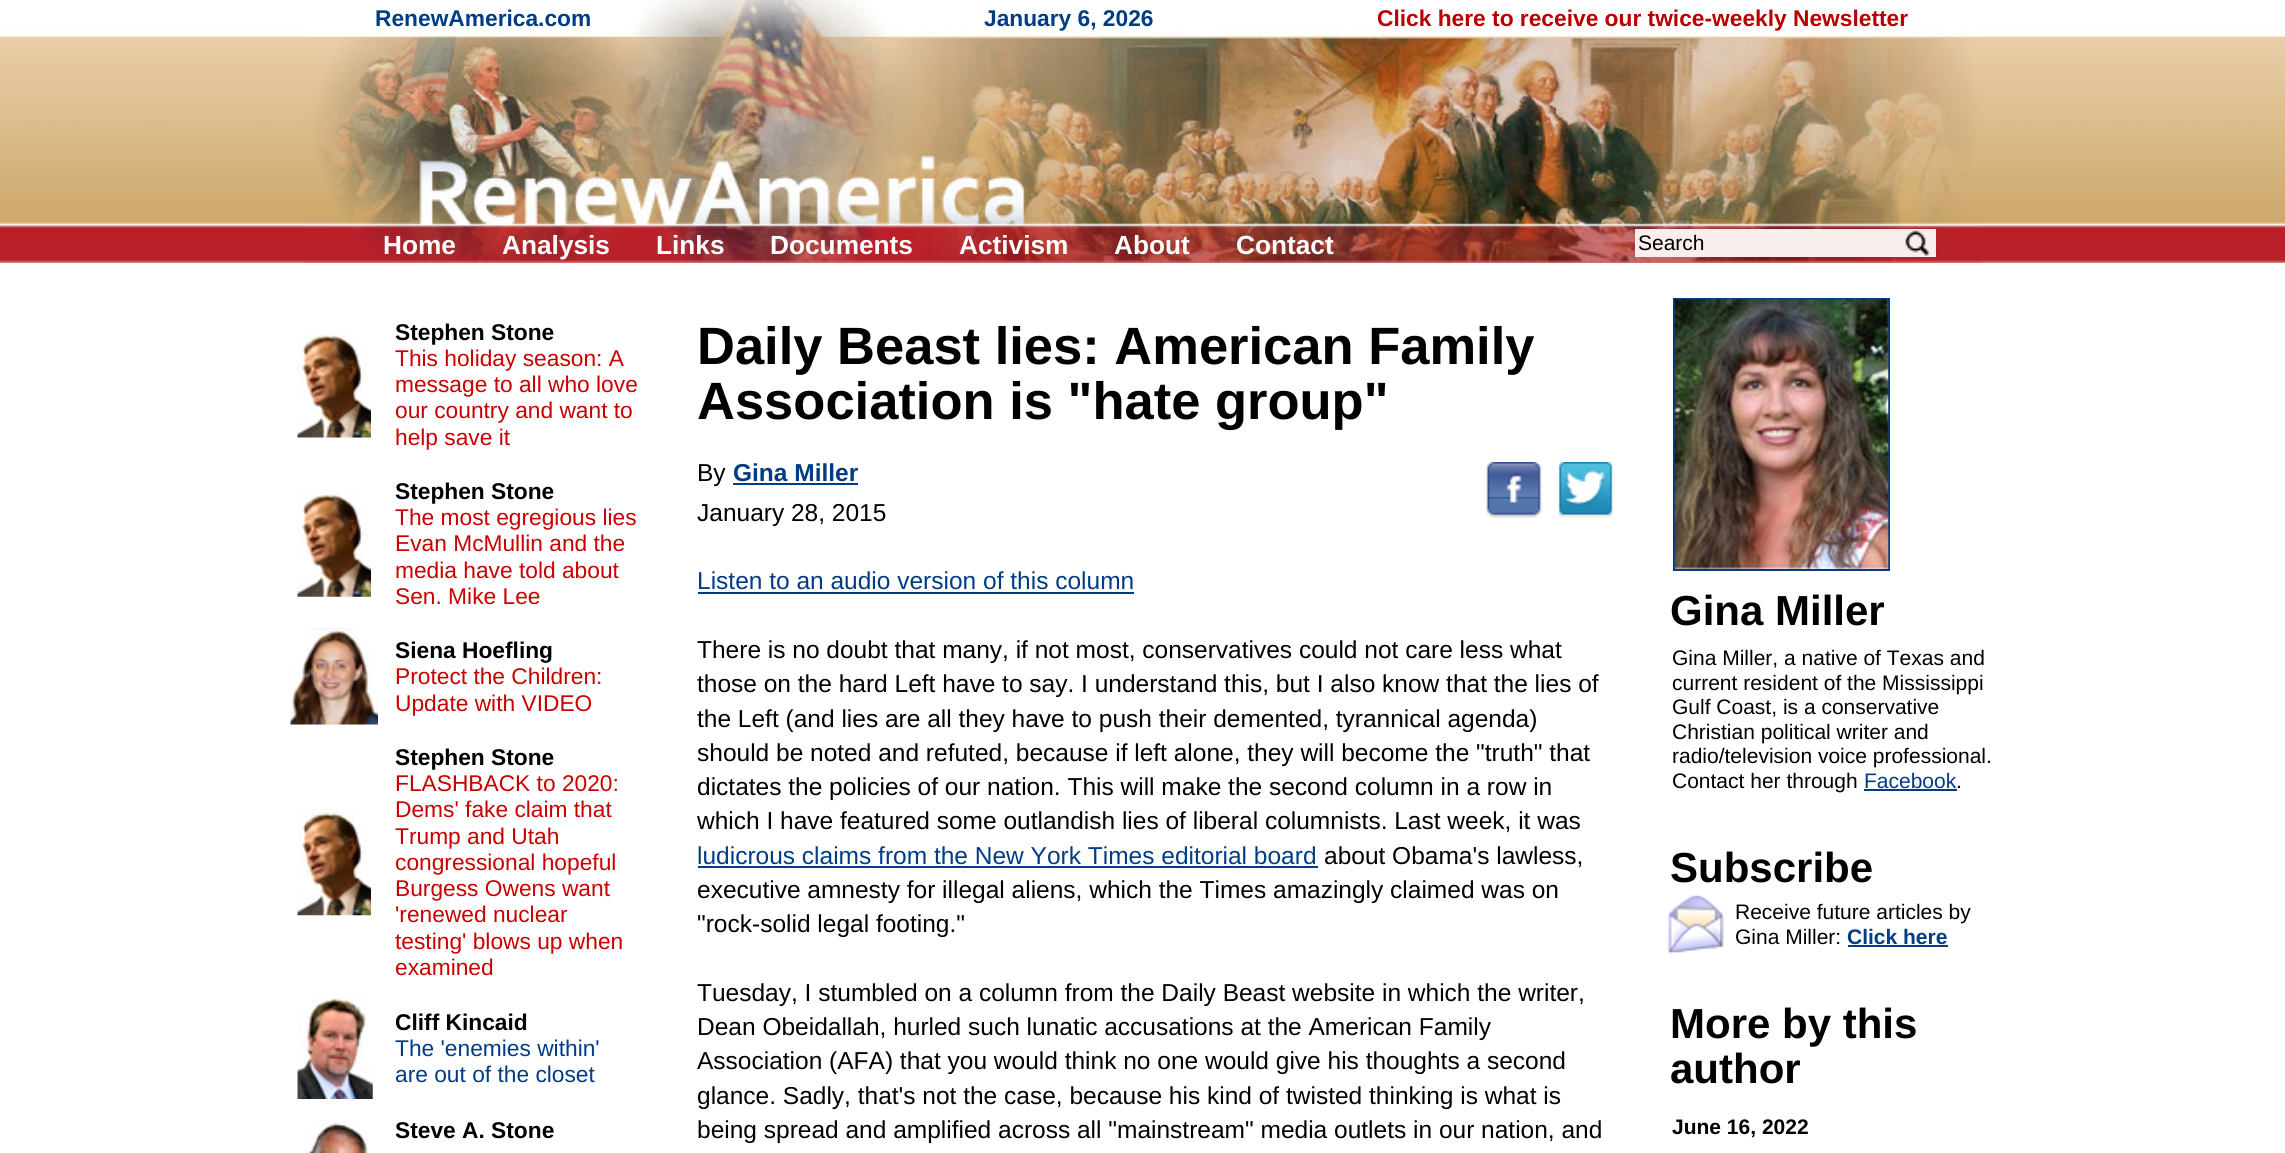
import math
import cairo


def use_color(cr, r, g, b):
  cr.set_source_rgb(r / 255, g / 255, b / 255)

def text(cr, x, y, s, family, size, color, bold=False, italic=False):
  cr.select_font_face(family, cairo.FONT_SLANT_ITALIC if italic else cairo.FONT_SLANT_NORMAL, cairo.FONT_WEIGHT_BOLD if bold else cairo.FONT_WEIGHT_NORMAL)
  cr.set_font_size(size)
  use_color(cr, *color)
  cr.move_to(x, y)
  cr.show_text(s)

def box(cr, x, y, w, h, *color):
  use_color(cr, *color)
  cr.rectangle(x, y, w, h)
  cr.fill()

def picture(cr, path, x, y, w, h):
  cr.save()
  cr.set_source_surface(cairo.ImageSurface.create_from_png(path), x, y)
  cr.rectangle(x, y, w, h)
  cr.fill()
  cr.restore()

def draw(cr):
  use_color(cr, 255, 255, 255)
  cr.paint()
  box(cr, 0, 262, 2285, 1, 209, 173, 116)
  picture(cr, "img_01.png", 0, 0, 2285, 263)
  picture(cr, "img_02.png", 304, 0, 1677, 263)
  box(cr, 1635, 229, 301, 28, 248, 238, 236)
  picture(cr, "img_03.png", 1905, 230, 24, 26)
  picture(cr, "img_04.png", 297, 331, 74, 107)
  picture(cr, "img_05.png", 297, 490, 74, 107)
  picture(cr, "img_06.png", 290, 628, 88, 97)
  picture(cr, "img_07.png", 297, 809, 74, 107)
  picture(cr, "img_08.png", 297, 997, 76, 102)
  picture(cr, "img_09.png", 303, 1120, 65, 33)
  picture(cr, "img_10.png", 1486, 462, 56, 56)
  picture(cr, "img_11.png", 1558, 462, 55, 56)
  box(cr, 733, 483, 125, 2, 0, 60, 132)
  box(cr, 698, 592, 436, 2, 0, 60, 132)
  box(cr, 698, 866, 620, 2, 0, 60, 132)
  cr.rectangle(1674, 299, 215, 271)
  cr.stroke()
  picture(cr, "img_12.png", 1674, 299, 215, 270)
  box(cr, 1864, 789, 93, 2, 0, 60, 132)
  picture(cr, "img_13.png", 1667, 895, 57, 59)
  box(cr, 1848, 945, 100, 2, 0, 60, 132)
  text(cr, 375, 26, "RenewAmerica.com", "Liberation Sans", 22.75, (0, 60, 132), bold=True)
  text(cr, 984, 26, "January 6, 2026", "Liberation Sans", 22.75, (0, 60, 132), bold=True)
  text(cr, 1377, 26, "Click here to receive our twice-weekly Newsletter", "Liberation Sans", 22.75, (184, 0, 0), bold=True)
  text(cr, 383, 254, "Home", "Liberation Sans", 26.25, (255, 255, 255), bold=True)
  text(cr, 502, 254, "Analysis", "Liberation Sans", 26.25, (255, 255, 255), bold=True)
  text(cr, 656, 254, "Links", "Liberation Sans", 26.25, (255, 255, 255), bold=True)
  text(cr, 770, 254, "Documents", "Liberation Sans", 26.25, (255, 255, 255), bold=True)
  text(cr, 959, 254, "Activism", "Liberation Sans", 26.25, (255, 255, 255), bold=True)
  text(cr, 1114, 254, "About", "Liberation Sans", 26.25, (255, 255, 255), bold=True)
  text(cr, 1236, 254, "Contact", "Liberation Sans", 26.25, (255, 255, 255), bold=True)
  text(cr, 1638, 250, "Search", "Liberation Sans", 21, (0, 0, 0))
  text(cr, 395, 340, "Stephen Stone", "Liberation Sans", 22.75, (0, 0, 0), bold=True)
  text(cr, 395, 366, "This holiday season: A", "Liberation Sans", 22.75, (200, 0, 0))
  text(cr, 395, 392, "message to all who love", "Liberation Sans", 22.75, (200, 0, 0))
  text(cr, 395, 418, "our country and want to", "Liberation Sans", 22.75, (200, 0, 0))
  text(cr, 395, 445, "help save it", "Liberation Sans", 22.75, (200, 0, 0))
  text(cr, 395, 499, "Stephen Stone", "Liberation Sans", 22.75, (0, 0, 0), bold=True)
  text(cr, 395, 525, "The most egregious lies", "Liberation Sans", 22.75, (200, 0, 0))
  text(cr, 395, 551, "Evan McMullin and the", "Liberation Sans", 22.75, (200, 0, 0))
  text(cr, 395, 578, "media have told about", "Liberation Sans", 22.75, (200, 0, 0))
  text(cr, 395, 604, "Sen. Mike Lee", "Liberation Sans", 22.75, (200, 0, 0))
  text(cr, 395, 658, "Siena Hoefling", "Liberation Sans", 22.75, (0, 0, 0), bold=True)
  text(cr, 395, 684, "Protect the Children:", "Liberation Sans", 22.75, (200, 0, 0))
  text(cr, 395, 711, "Update with VIDEO", "Liberation Sans", 22.75, (200, 0, 0))
  text(cr, 395, 765, "Stephen Stone", "Liberation Sans", 22.75, (0, 0, 0), bold=True)
  text(cr, 395, 791, "FLASHBACK to 2020:", "Liberation Sans", 22.75, (200, 0, 0))
  text(cr, 395, 817, "Dems' fake claim that", "Liberation Sans", 22.75, (200, 0, 0))
  text(cr, 395, 844, "Trump and Utah", "Liberation Sans", 22.75, (200, 0, 0))
  text(cr, 395, 870, "congressional hopeful", "Liberation Sans", 22.75, (200, 0, 0))
  text(cr, 395, 896, "Burgess Owens want", "Liberation Sans", 22.75, (200, 0, 0))
  text(cr, 395, 922, "'renewed nuclear", "Liberation Sans", 22.75, (200, 0, 0))
  text(cr, 395, 949, "testing' blows up when", "Liberation Sans", 22.75, (200, 0, 0))
  text(cr, 395, 975, "examined", "Liberation Sans", 22.75, (200, 0, 0))
  text(cr, 395, 1030, "Cliff Kincaid", "Liberation Sans", 22.75, (0, 0, 0), bold=True)
  text(cr, 395, 1056, "The 'enemies within'", "Liberation Sans", 22.75, (0, 60, 132))
  text(cr, 395, 1082, "are out of the closet", "Liberation Sans", 22.75, (0, 60, 132))
  text(cr, 395, 1138, "Steve A. Stone", "Liberation Sans", 22.75, (0, 0, 0), bold=True)
  text(cr, 697, 364, "Daily Beast lies: American Family", "Liberation Sans", 52.5, (0, 0, 0), bold=True)
  text(cr, 697, 419, "Association is \"hate group\"", "Liberation Sans", 52.5, (0, 0, 0), bold=True)
  text(cr, 697, 481, "By", "Liberation Sans", 24.5, (0, 0, 0))
  text(cr, 733, 481, "Gina Miller", "Liberation Sans", 24.5, (0, 60, 132), bold=True)
  text(cr, 697, 521, "January 28, 2015", "Liberation Sans", 24.5, (0, 0, 0))
  text(cr, 697, 589, "Listen to an audio version of this column", "Liberation Sans", 24.5, (0, 60, 132))
  text(cr, 697, 658, "There is no doubt that many, if not most, conservatives could not care less what", "Liberation Sans", 24.5, (0, 0, 0))
  text(cr, 697, 692, "those on the hard Left have to say. I understand this, but I also know that the lies of", "Liberation Sans", 24.5, (0, 0, 0))
  text(cr, 697, 727, "the Left (and lies are all they have to push their demented, tyrannical agenda)", "Liberation Sans", 24.5, (0, 0, 0))
  text(cr, 697, 761, "should be noted and refuted, because if left alone, they will become the \"truth\" that", "Liberation Sans", 24.5, (0, 0, 0))
  text(cr, 697, 795, "dictates the policies of our nation. This will make the second column in a row in", "Liberation Sans", 24.5, (0, 0, 0))
  text(cr, 697, 829, "which I have featured some outlandish lies of liberal columnists. Last week, it was", "Liberation Sans", 24.5, (0, 0, 0))
  text(cr, 697, 864, "ludicrous claims from the New York Times editorial board", "Liberation Sans", 24.5, (0, 60, 132))
  text(cr, 1324, 864, "about Obama's lawless,", "Liberation Sans", 24.5, (0, 0, 0))
  text(cr, 697, 898, "executive amnesty for illegal aliens, which the Times amazingly claimed was on", "Liberation Sans", 24.5, (0, 0, 0))
  text(cr, 697, 932, "\"rock-solid legal footing.\"", "Liberation Sans", 24.5, (0, 0, 0))
  text(cr, 697, 1001, "Tuesday, I stumbled on a column from the Daily Beast website in which the writer,", "Liberation Sans", 24.5, (0, 0, 0))
  text(cr, 697, 1035, "Dean Obeidallah, hurled such lunatic accusations at the American Family", "Liberation Sans", 24.5, (0, 0, 0))
  text(cr, 697, 1069, "Association (AFA) that you would think no one would give his thoughts a second", "Liberation Sans", 24.5, (0, 0, 0))
  text(cr, 697, 1104, "glance. Sadly, that's not the case, because his kind of twisted thinking is what is", "Liberation Sans", 24.5, (0, 0, 0))
  text(cr, 697, 1138, "being spread and amplified across all \"mainstream\" media outlets in our nation, and", "Liberation Sans", 24.5, (0, 0, 0))
  text(cr, 1670, 625, "Gina Miller", "Liberation Sans", 42, (0, 0, 0), bold=True)
  text(cr, 1672, 665, "Gina Miller, a native of Texas and", "Liberation Sans", 21, (0, 0, 0))
  text(cr, 1672, 690, "current resident of the Mississippi", "Liberation Sans", 21, (0, 0, 0))
  text(cr, 1672, 714, "Gulf Coast, is a conservative", "Liberation Sans", 21, (0, 0, 0))
  text(cr, 1672, 739, "Christian political writer and", "Liberation Sans", 21, (0, 0, 0))
  text(cr, 1672, 763, "radio/television voice professional.", "Liberation Sans", 21, (0, 0, 0))
  text(cr, 1672, 788, "Contact her through", "Liberation Sans", 21, (0, 0, 0))
  text(cr, 1864, 788, "Facebook", "Liberation Sans", 21, (0, 60, 132))
  text(cr, 1956, 788, ".", "Liberation Sans", 21, (0, 0, 0))
  text(cr, 1670, 882, "Subscribe", "Liberation Sans", 42, (0, 0, 0), bold=True)
  text(cr, 1735, 919, "Receive future articles by", "Liberation Sans", 21, (0, 0, 0))
  text(cr, 1735, 944, "Gina Miller:", "Liberation Sans", 21, (0, 0, 0))
  text(cr, 1847, 944, "Click here", "Liberation Sans", 21, (0, 60, 132), bold=True)
  text(cr, 1670, 1038, "More by this", "Liberation Sans", 42, (0, 0, 0), bold=True)
  text(cr, 1670, 1083, "author", "Liberation Sans", 42, (0, 0, 0), bold=True)
  text(cr, 1672, 1134, "June 16, 2022", "Liberation Sans", 21, (0, 0, 0), bold=True)


surface = cairo.ImageSurface(cairo.FORMAT_RGB24, 2285, 1153)
cr = cairo.Context(surface)
options = cairo.FontOptions()
options.set_hint_metrics(cairo.HINT_METRICS_OFF)
options.set_hint_style(cairo.HINT_STYLE_NONE)
cr.set_font_options(options)
cr.set_miter_limit(4)
draw(cr)
surface.write_to_png("out.png")
